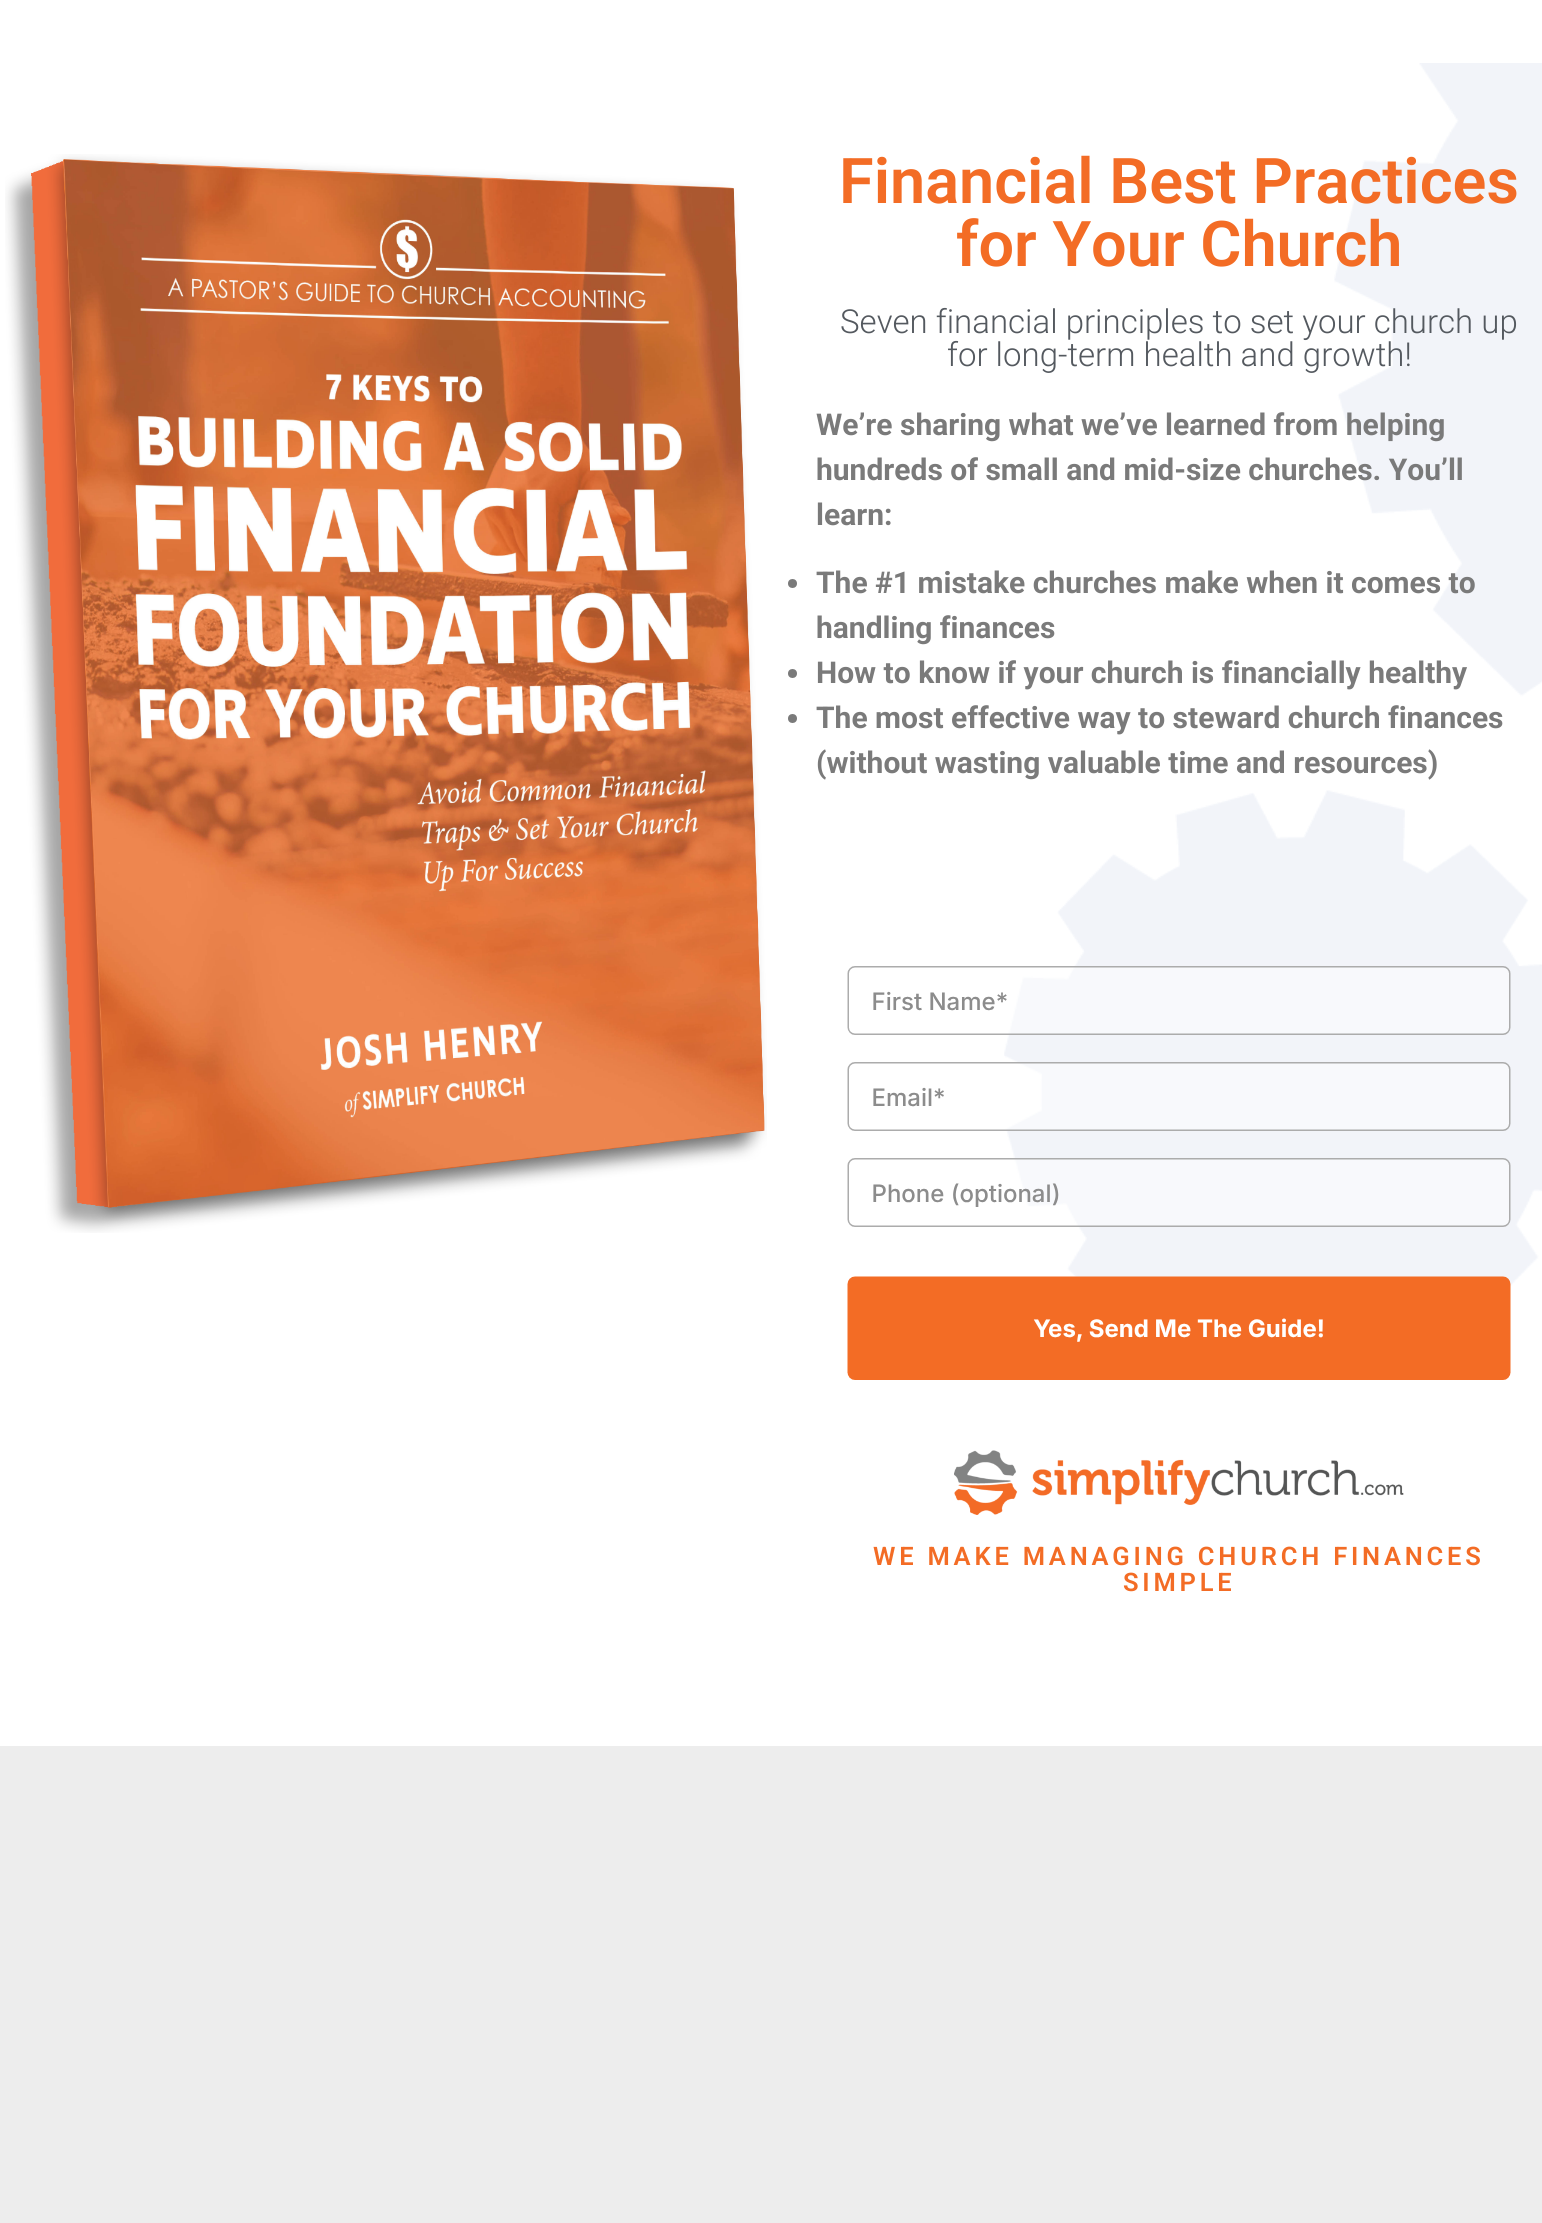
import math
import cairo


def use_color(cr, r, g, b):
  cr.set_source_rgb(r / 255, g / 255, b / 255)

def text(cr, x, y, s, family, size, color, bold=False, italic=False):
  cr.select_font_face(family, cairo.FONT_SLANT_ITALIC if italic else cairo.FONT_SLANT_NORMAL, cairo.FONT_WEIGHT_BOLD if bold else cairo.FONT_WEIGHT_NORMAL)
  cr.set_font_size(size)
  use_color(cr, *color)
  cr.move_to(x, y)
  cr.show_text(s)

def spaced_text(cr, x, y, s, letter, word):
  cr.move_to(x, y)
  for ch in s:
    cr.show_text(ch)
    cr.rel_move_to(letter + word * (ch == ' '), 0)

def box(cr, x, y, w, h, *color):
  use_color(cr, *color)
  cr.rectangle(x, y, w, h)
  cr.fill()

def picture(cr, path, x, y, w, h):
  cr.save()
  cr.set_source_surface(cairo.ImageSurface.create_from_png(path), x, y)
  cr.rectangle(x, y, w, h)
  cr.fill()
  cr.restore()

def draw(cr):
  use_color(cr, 237, 237, 237)
  cr.paint()
  box(cr, 0, 0, 1542, 1746, 255, 255, 255)
  picture(cr, "img_01.png", 1004, 63, 538, 1223)
  picture(cr, "img_02.png", 5, 154, 762, 1079)
  use_color(cr, 122, 122, 122)
  cr.arc(792.5, 583.5, 4.5, 0, 2 * math.pi)
  cr.fill()
  cr.arc(792.5, 673.5, 4.5, 0, 2 * math.pi)
  cr.fill()
  cr.arc(792.5, 718.5, 4.5, 0, 2 * math.pi)
  cr.fill()
  picture(cr, "img_03.png", 847, 966, 664, 414)
  picture(cr, "img_04.png", 954, 1450, 450, 65)
  text(cr, 839, 203, "Financial Best Practices", "Roboto SemiBold", 63, (243, 108, 37))
  text(cr, 956, 266, "for Your Church", "Roboto SemiBold", 63, (243, 108, 37))
  text(cr, 840, 333, "Seven financial principles to set your church up", "Roboto Light", 33, (84, 89, 95))
  text(cr, 947, 366, "for long-term health and growth!", "Roboto Light", 33, (84, 89, 95))
  text(cr, 816, 435, "We’re sharing what we’ve learned from helping", "Roboto", 30, (122, 122, 122), bold=True)
  text(cr, 816, 480, "hundreds of small and mid-size churches. You’ll", "Roboto", 30, (122, 122, 122), bold=True)
  text(cr, 816, 525, "learn:", "Roboto", 30, (122, 122, 122), bold=True)
  text(cr, 816, 593, "The #1 mistake churches make when it comes to", "Roboto", 30, (122, 122, 122), bold=True)
  text(cr, 816, 638, "handling finances", "Roboto", 30, (122, 122, 122), bold=True)
  text(cr, 816, 683, "How to know if your church is financially healthy", "Roboto", 30, (122, 122, 122), bold=True)
  text(cr, 816, 728, "The most effective way to steward church finances", "Roboto", 30, (122, 122, 122), bold=True)
  text(cr, 816, 773, "(without wasting valuable time and resources)", "Roboto", 30, (122, 122, 122), bold=True)
  cr.select_font_face("Roboto SemiBold")
  cr.set_font_size(25.5)
  use_color(cr, 243, 108, 37)
  spaced_text(cr, 873, 1565, "WE MAKE MANAGING CHURCH FINANCES", 3.8, 0)
  spaced_text(cr, 1123, 1591, "SIMPLE", 3.8, 0)


surface = cairo.ImageSurface(cairo.FORMAT_RGB24, 1542, 2223)
cr = cairo.Context(surface)
options = cairo.FontOptions()
options.set_hint_metrics(cairo.HINT_METRICS_OFF)
options.set_hint_style(cairo.HINT_STYLE_NONE)
cr.set_font_options(options)
cr.set_miter_limit(4)
draw(cr)
surface.write_to_png("out.png")
